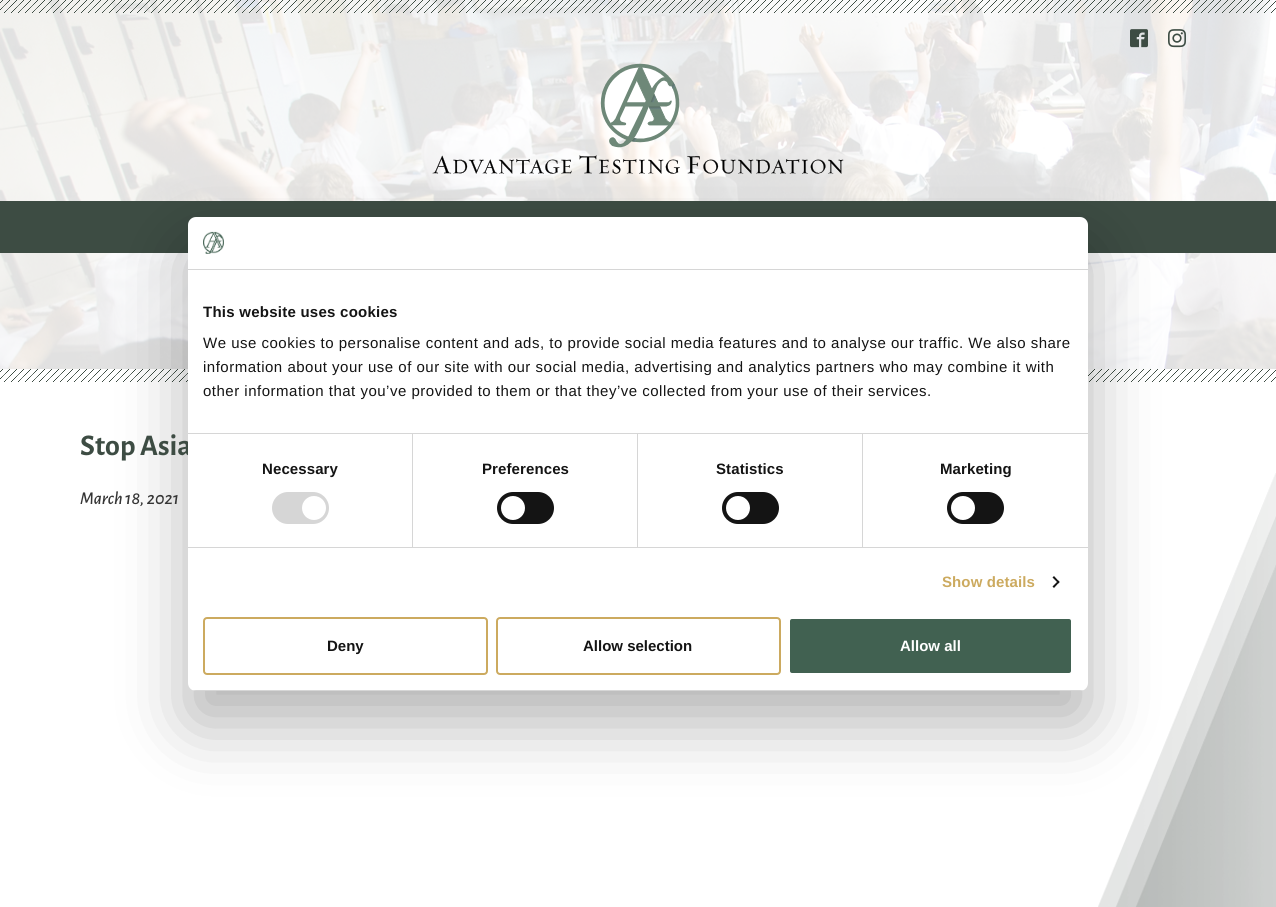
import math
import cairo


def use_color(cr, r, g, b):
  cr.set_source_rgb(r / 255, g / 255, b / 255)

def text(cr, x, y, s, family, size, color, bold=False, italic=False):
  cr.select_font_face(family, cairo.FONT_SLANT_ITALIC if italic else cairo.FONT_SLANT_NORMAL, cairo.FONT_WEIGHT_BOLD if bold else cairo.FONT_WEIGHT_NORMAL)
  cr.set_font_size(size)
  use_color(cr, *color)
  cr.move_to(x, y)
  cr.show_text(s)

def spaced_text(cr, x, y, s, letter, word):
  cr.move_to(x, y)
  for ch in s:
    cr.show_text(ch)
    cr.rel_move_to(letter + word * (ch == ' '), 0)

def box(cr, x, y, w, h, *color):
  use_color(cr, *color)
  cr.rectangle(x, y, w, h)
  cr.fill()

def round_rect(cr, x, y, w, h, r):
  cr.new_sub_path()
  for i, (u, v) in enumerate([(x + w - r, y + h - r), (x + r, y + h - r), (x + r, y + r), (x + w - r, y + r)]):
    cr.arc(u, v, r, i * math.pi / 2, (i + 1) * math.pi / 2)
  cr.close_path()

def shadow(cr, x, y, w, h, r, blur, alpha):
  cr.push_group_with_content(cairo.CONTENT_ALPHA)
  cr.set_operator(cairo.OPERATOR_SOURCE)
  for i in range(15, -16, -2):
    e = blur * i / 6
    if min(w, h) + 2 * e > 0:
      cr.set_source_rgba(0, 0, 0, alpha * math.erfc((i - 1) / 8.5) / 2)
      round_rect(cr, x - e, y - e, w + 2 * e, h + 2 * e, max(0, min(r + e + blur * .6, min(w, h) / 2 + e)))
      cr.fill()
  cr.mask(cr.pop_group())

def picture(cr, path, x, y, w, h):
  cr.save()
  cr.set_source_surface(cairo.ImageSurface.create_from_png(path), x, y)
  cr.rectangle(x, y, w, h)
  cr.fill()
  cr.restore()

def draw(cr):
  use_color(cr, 255, 255, 255)
  cr.paint()
  picture(cr, "img_01.png", 1098, 473, 178, 434)
  picture(cr, "img_02.png", 0, 0, 1276, 369)
  cr.set_source_rgba(1, 1, 1, 0.88)
  cr.rectangle(0, 0, 1276, 201)
  cr.fill()
  picture(cr, "img_03.png", 0, 0, 1276, 13)
  picture(cr, "img_04.png", 1130, 29, 18, 19)
  picture(cr, "img_05.png", 1168, 29, 18, 19)
  picture(cr, "img_06.png", 432, 63, 412, 111)
  box(cr, 0, 201, 1276, 52, 61, 76, 67)
  cr.set_source_rgba(1, 1, 1, 0.88)
  cr.rectangle(0, 253, 1276, 116)
  cr.fill()
  picture(cr, "img_07.png", 0, 369, 1276, 13)
  use_color(cr, 0, 0, 0)
  shadow(cr, 188, 249, 900, 474, 8, 34, 0.3)
  text(cr, 80, 455, "Stop Asia", "Alegreya Sans", 30, (61, 76, 67), bold=True)
  text(cr, 80, 504, "March 18, 2021", "Alegreya Sans Medium", 18, (53, 53, 53), italic=True)
  use_color(cr, 255, 255, 255)
  round_rect(cr, 188, 217, 900, 474, 8)
  cr.fill()
  box(cr, 188, 269, 900, 1, 214, 214, 214)
  picture(cr, "img_08.png", 203, 231, 21, 23)
  box(cr, 188, 433, 900, 1, 214, 214, 214)
  cr.select_font_face("Liberation Sans", cairo.FONT_SLANT_NORMAL, cairo.FONT_WEIGHT_BOLD)
  cr.set_font_size(15)
  use_color(cr, 20, 20, 20)
  spaced_text(cr, 203, 317, "This website uses cookies", 0.25, 0)
  cr.select_font_face("Liberation Sans")
  spaced_text(cr, 203, 348, "We use cookies to personalise content and ads, to provide social media features and to analyse our traffic. We also share", 0.5, 0)
  spaced_text(cr, 203, 372, "information about your use of our site with our social media, advertising and analytics partners who may combine it with", 0.5, 0)
  spaced_text(cr, 203, 396, "other information that you’ve provided to them or that they’ve collected from your use of their services.", 0.5, 0)
  box(cr, 188, 547, 900, 1, 214, 214, 214)
  box(cr, 412, 434, 1, 113, 214, 214, 214)
  cr.select_font_face("Liberation Sans", cairo.FONT_SLANT_NORMAL, cairo.FONT_WEIGHT_BOLD)
  use_color(cr, 20, 20, 20)
  spaced_text(cr, 262, 474, "Necessary", 0.1, 0)
  use_color(cr, 214, 214, 214)
  round_rect(cr, 272, 492, 57, 32, 16)
  cr.fill()
  use_color(cr, 255, 255, 255)
  cr.arc(314, 508, 12, 0, 2 * math.pi)
  cr.fill()
  box(cr, 637, 434, 1, 113, 214, 214, 214)
  use_color(cr, 20, 20, 20)
  spaced_text(cr, 482, 474, "Preferences", 0.1, 0)
  round_rect(cr, 497, 492, 57, 32, 16)
  cr.fill()
  use_color(cr, 255, 255, 255)
  cr.arc(513, 508, 12, 0, 2 * math.pi)
  cr.fill()
  box(cr, 862, 434, 1, 113, 214, 214, 214)
  use_color(cr, 20, 20, 20)
  spaced_text(cr, 716, 474, "Statistics", 0.1, 0)
  round_rect(cr, 722, 492, 57, 32, 16)
  cr.fill()
  use_color(cr, 255, 255, 255)
  cr.arc(738, 508, 12, 0, 2 * math.pi)
  cr.fill()
  use_color(cr, 20, 20, 20)
  spaced_text(cr, 940, 474, "Marketing", 0.1, 0)
  round_rect(cr, 947, 492, 57, 32, 16)
  cr.fill()
  use_color(cr, 255, 255, 255)
  cr.arc(963, 508, 12, 0, 2 * math.pi)
  cr.fill()
  use_color(cr, 204, 170, 95)
  spaced_text(cr, 942, 587, "Show details", 0.1, 0)
  use_color(cr, 20, 20, 20)
  cr.new_path()
  cr.move_to(1054, 576)
  cr.line_to(1059.5, 582)
  cr.line_to(1058.5, 583.5)
  cr.line_to(1052.5, 577.5)
  cr.close_path()
  cr.fill()
  cr.new_path()
  cr.move_to(1058.5, 580.5)
  cr.line_to(1059.5, 582)
  cr.line_to(1054, 588)
  cr.line_to(1052.5, 586.5)
  cr.close_path()
  cr.fill()
  cr.save()
  round_rect(cr, 188, 217, 900, 474, 8)
  cr.clip()
  box(cr, 188, 690, 900, 1, 214, 214, 214)
  cr.restore()
  round_rect(cr, 204, 618, 283, 56, 3)
  use_color(cr, 204, 170, 95)
  cr.stroke()
  text(cr, 327, 651, "Deny", "Liberation Sans", 15, (20, 20, 20), bold=True)
  round_rect(cr, 497, 618, 283, 56, 3)
  use_color(cr, 204, 170, 95)
  cr.stroke()
  text(cr, 583, 651, "Allow selection", "Liberation Sans", 15, (20, 20, 20), bold=True)
  use_color(cr, 65, 97, 81)
  round_rect(cr, 789, 618, 283, 56, 3)
  cr.fill_preserve()
  use_color(cr, 255, 255, 255)
  cr.stroke()
  text(cr, 900, 651, "Allow all", "Liberation Sans", 15, (255, 255, 255), bold=True)


surface = cairo.ImageSurface(cairo.FORMAT_RGB24, 1276, 907)
cr = cairo.Context(surface)
options = cairo.FontOptions()
options.set_hint_metrics(cairo.HINT_METRICS_OFF)
options.set_hint_style(cairo.HINT_STYLE_NONE)
cr.set_font_options(options)
cr.set_miter_limit(4)
draw(cr)
surface.write_to_png("out.png")
